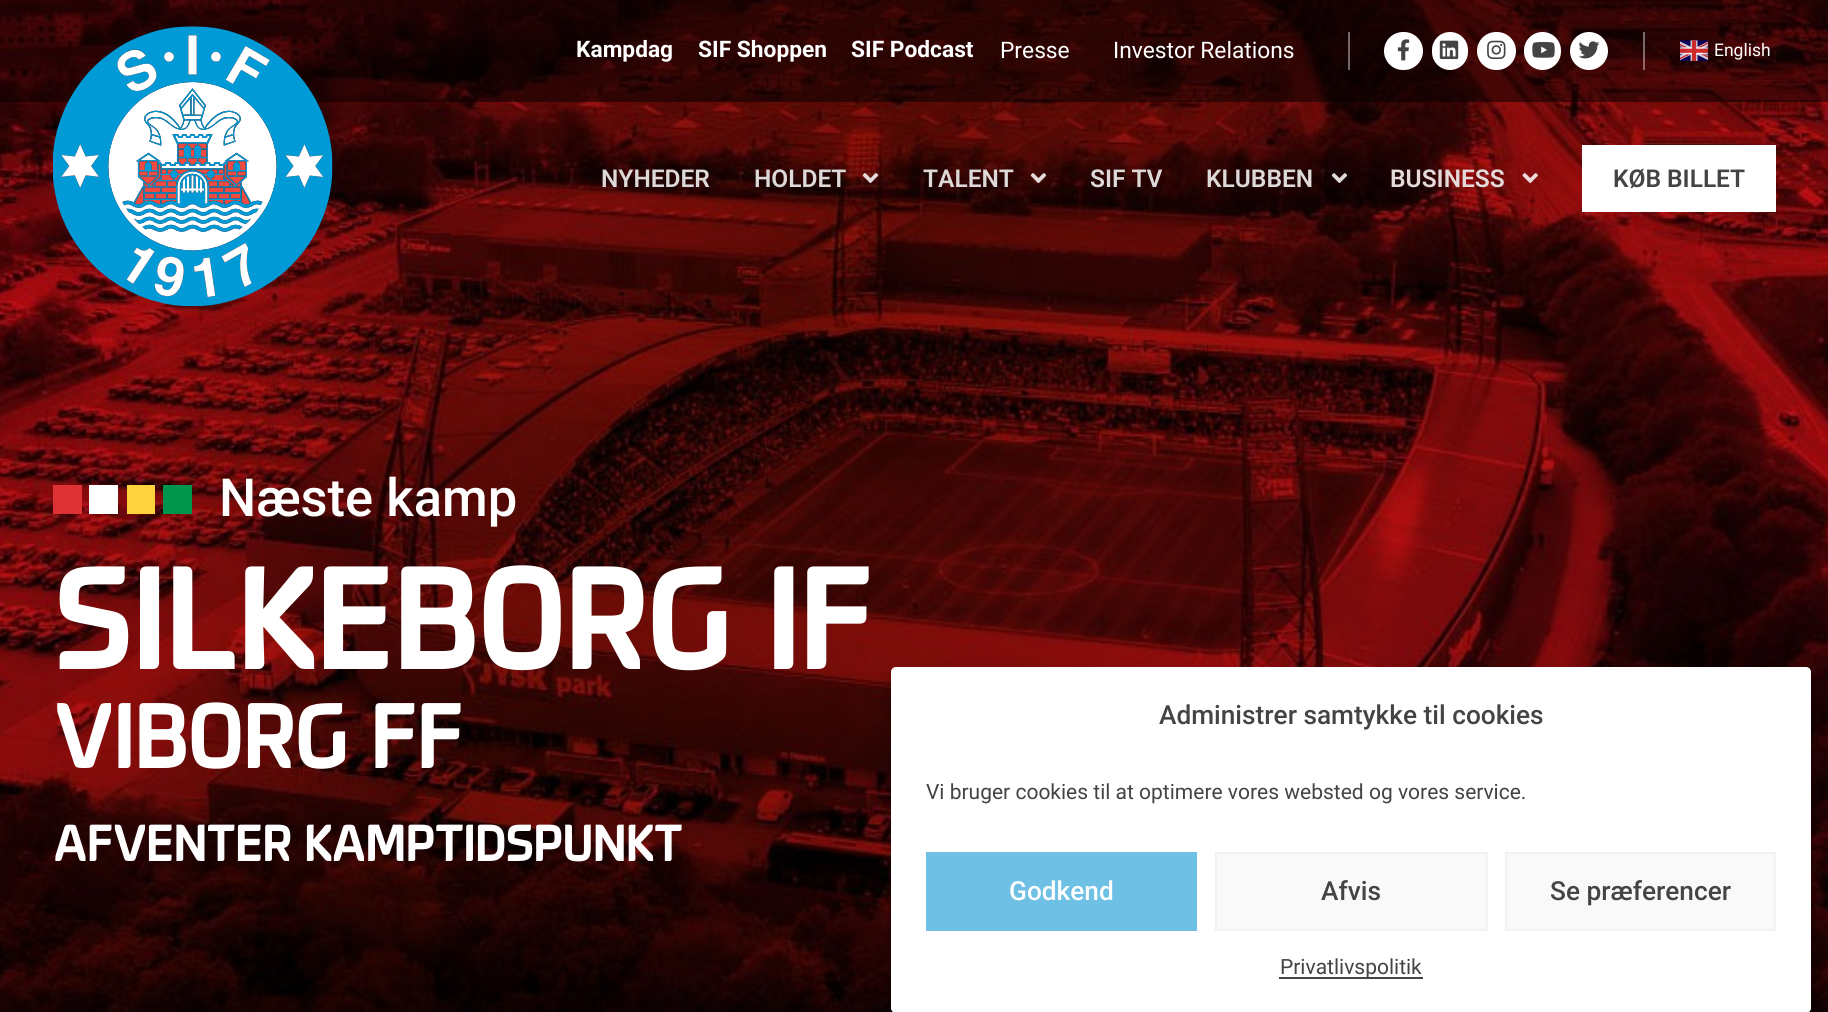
import math
import cairo


def use_color(cr, r, g, b):
  cr.set_source_rgb(r / 255, g / 255, b / 255)

def text(cr, x, y, s, family, size, color, bold=False, italic=False):
  cr.select_font_face(family, cairo.FONT_SLANT_ITALIC if italic else cairo.FONT_SLANT_NORMAL, cairo.FONT_WEIGHT_BOLD if bold else cairo.FONT_WEIGHT_NORMAL)
  cr.set_font_size(size)
  use_color(cr, *color)
  cr.move_to(x, y)
  cr.show_text(s)

def box(cr, x, y, w, h, *color):
  use_color(cr, *color)
  cr.rectangle(x, y, w, h)
  cr.fill()

def round_rect(cr, x, y, w, h, r):
  cr.new_sub_path()
  for i, (u, v) in enumerate([(x + w - r, y + h - r), (x + r, y + h - r), (x + r, y + r), (x + w - r, y + r)]):
    cr.arc(u, v, r, i * math.pi / 2, (i + 1) * math.pi / 2)
  cr.close_path()

def shadow(cr, x, y, w, h, r, blur, alpha):
  cr.push_group_with_content(cairo.CONTENT_ALPHA)
  cr.set_operator(cairo.OPERATOR_SOURCE)
  for i in range(15, -16, -2):
    e = blur * i / 6
    if min(w, h) + 2 * e > 0:
      cr.set_source_rgba(0, 0, 0, alpha * math.erfc((i - 1) / 8.5) / 2)
      round_rect(cr, x - e, y - e, w + 2 * e, h + 2 * e, max(0, min(r + e + blur * .6, min(w, h) / 2 + e)))
      cr.fill()
  cr.mask(cr.pop_group())

def picture(cr, path, x, y, w, h):
  cr.save()
  cr.set_source_surface(cairo.ImageSurface.create_from_png(path), x, y)
  cr.rectangle(x, y, w, h)
  cr.fill()
  cr.restore()

def draw(cr):
  use_color(cr, 255, 255, 255)
  cr.paint()
  picture(cr, "img_12.png", 0, 0, 1828, 1012)
  cr.set_source_rgba(0, 0, 0, 0.5)
  cr.rectangle(0, 0, 1828, 102)
  cr.fill()
  picture(cr, "img_01.png", 53, 26, 280, 280)
  cr.set_source_rgba(1, 1, 1, 0.4)
  cr.rectangle(1643, 32, 2, 38)
  cr.fill()
  cr.rectangle(1348, 32, 2, 38)
  cr.fill()
  use_color(cr, 255, 255, 255)
  round_rect(cr, 1384, 32, 39, 38, 19)
  cr.fill()
  picture(cr, "img_02.png", 1397, 39, 13, 22)
  round_rect(cr, 1432, 32, 36, 38, 18)
  cr.fill()
  picture(cr, "img_03.png", 1439, 40, 20, 20)
  round_rect(cr, 1477, 32, 39, 38, 19)
  cr.fill()
  picture(cr, "img_04.png", 1487, 40, 19, 20)
  round_rect(cr, 1524, 32, 37, 38, 18.5)
  cr.fill()
  picture(cr, "img_05.png", 1532, 42, 23, 16)
  cr.arc(1589, 51, 19, 0, 2 * math.pi)
  cr.fill()
  picture(cr, "img_06.png", 1578, 41, 22, 18)
  picture(cr, "img_07.png", 1680, 40, 28, 21)
  picture(cr, "img_08.png", 862, 173, 17, 10)
  picture(cr, "img_09.png", 1030, 173, 17, 10)
  picture(cr, "img_10.png", 1331, 173, 17, 10)
  picture(cr, "img_11.png", 1522, 173, 16, 10)
  box(cr, 1582, 145, 194, 67, 255, 255, 255)
  box(cr, 163, 485, 29, 29, 0, 149, 76)
  box(cr, 127, 485, 28, 29, 252, 211, 60)
  box(cr, 89, 485, 29, 29, 255, 255, 255)
  box(cr, 53, 485, 29, 29, 222, 49, 51)
  use_color(cr, 0, 0, 0)
  shadow(cr, 891, 677, 920, 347, 5, 5, 0.23)
  shadow(cr, 891, 684, 920, 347, 5, 17.5, 0.19)
  use_color(cr, 255, 255, 255)
  round_rect(cr, 891, 667, 920, 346, 5)
  cr.fill()
  box(cr, 926, 852, 271, 79, 110, 193, 228)
  use_color(cr, 249, 249, 249)
  cr.rectangle(1216, 853, 271, 77)
  cr.fill_preserve()
  use_color(cr, 242, 242, 242)
  cr.stroke()
  use_color(cr, 249, 249, 249)
  cr.rectangle(1506, 853, 269, 77)
  cr.fill_preserve()
  use_color(cr, 242, 242, 242)
  cr.stroke()
  box(cr, 1279, 977, 144, 2, 68, 68, 68)
  text(cr, 576, 57, "Kampdag", "Roboto", 22.75, (255, 255, 255), bold=True)
  text(cr, 698, 57, "SIF Shoppen", "Roboto", 22.75, (255, 255, 255), bold=True)
  cr.save()
  cr.rectangle(576, 30, 397, 42)
  cr.clip()
  text(cr, 851, 57, "SIF Podcast", "Roboto", 22.75, (255, 255, 255), bold=True)
  cr.restore()
  text(cr, 1000, 58, "Presse", "Roboto", 22.75, (255, 255, 255))
  text(cr, 1113, 58, "Investor Relations", "Roboto", 22.75, (255, 255, 255))
  text(cr, 1714, 56, "English", "Roboto", 17.5, (255, 255, 255))
  text(cr, 601, 187, "NYHEDER", "Roboto SemiBold", 24.5, (222, 217, 217))
  text(cr, 754, 187, "HOLDET", "Roboto SemiBold", 24.5, (222, 217, 217))
  text(cr, 923, 187, "TALENT", "Roboto SemiBold", 24.5, (222, 217, 217))
  text(cr, 1090, 187, "SIF TV", "Roboto SemiBold", 24.5, (222, 217, 217))
  text(cr, 1206, 187, "KLUBBEN", "Roboto SemiBold", 24.5, (222, 217, 217))
  text(cr, 1390, 187, "BUSINESS", "Roboto SemiBold", 24.5, (229, 218, 218))
  text(cr, 1613, 187, "KØB BILLET", "Roboto SemiBold", 24.5, (68, 68, 68))
  text(cr, 219, 516, "Næste kamp", "Roboto Medium", 52.5, (255, 255, 255))
  text(cr, 53, 669, "SILKEBORG IF", "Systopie", 138.25, (255, 255, 255), bold=True)
  text(cr, 53, 768, "VIBORG FF", "Systopie", 87.5, (255, 255, 255), bold=True)
  text(cr, 53, 861, "AFVENTER KAMPTIDSPUNKT", "Systopie", 49, (255, 255, 255), bold=True)
  text(cr, 1159, 724, "Administrer samtykke til cookies", "Roboto Medium", 26.25, (68, 68, 68))
  text(cr, 926, 799, "Vi bruger cookies til at optimere vores websted og vores service.", "Roboto", 21, (68, 68, 68))
  text(cr, 1009, 900, "Godkend", "Roboto Medium", 26.25, (255, 255, 255))
  text(cr, 1321, 900, "Afvis", "Roboto Medium", 26.25, (68, 68, 68))
  text(cr, 1550, 900, "Se præferencer", "Roboto Medium", 26.25, (68, 68, 68))
  text(cr, 1280, 974, "Privatlivspolitik", "Roboto", 21, (68, 68, 68))


surface = cairo.ImageSurface(cairo.FORMAT_RGB24, 1828, 1012)
cr = cairo.Context(surface)
options = cairo.FontOptions()
options.set_hint_metrics(cairo.HINT_METRICS_OFF)
options.set_hint_style(cairo.HINT_STYLE_NONE)
cr.set_font_options(options)
cr.set_miter_limit(4)
draw(cr)
surface.write_to_png("out.png")
